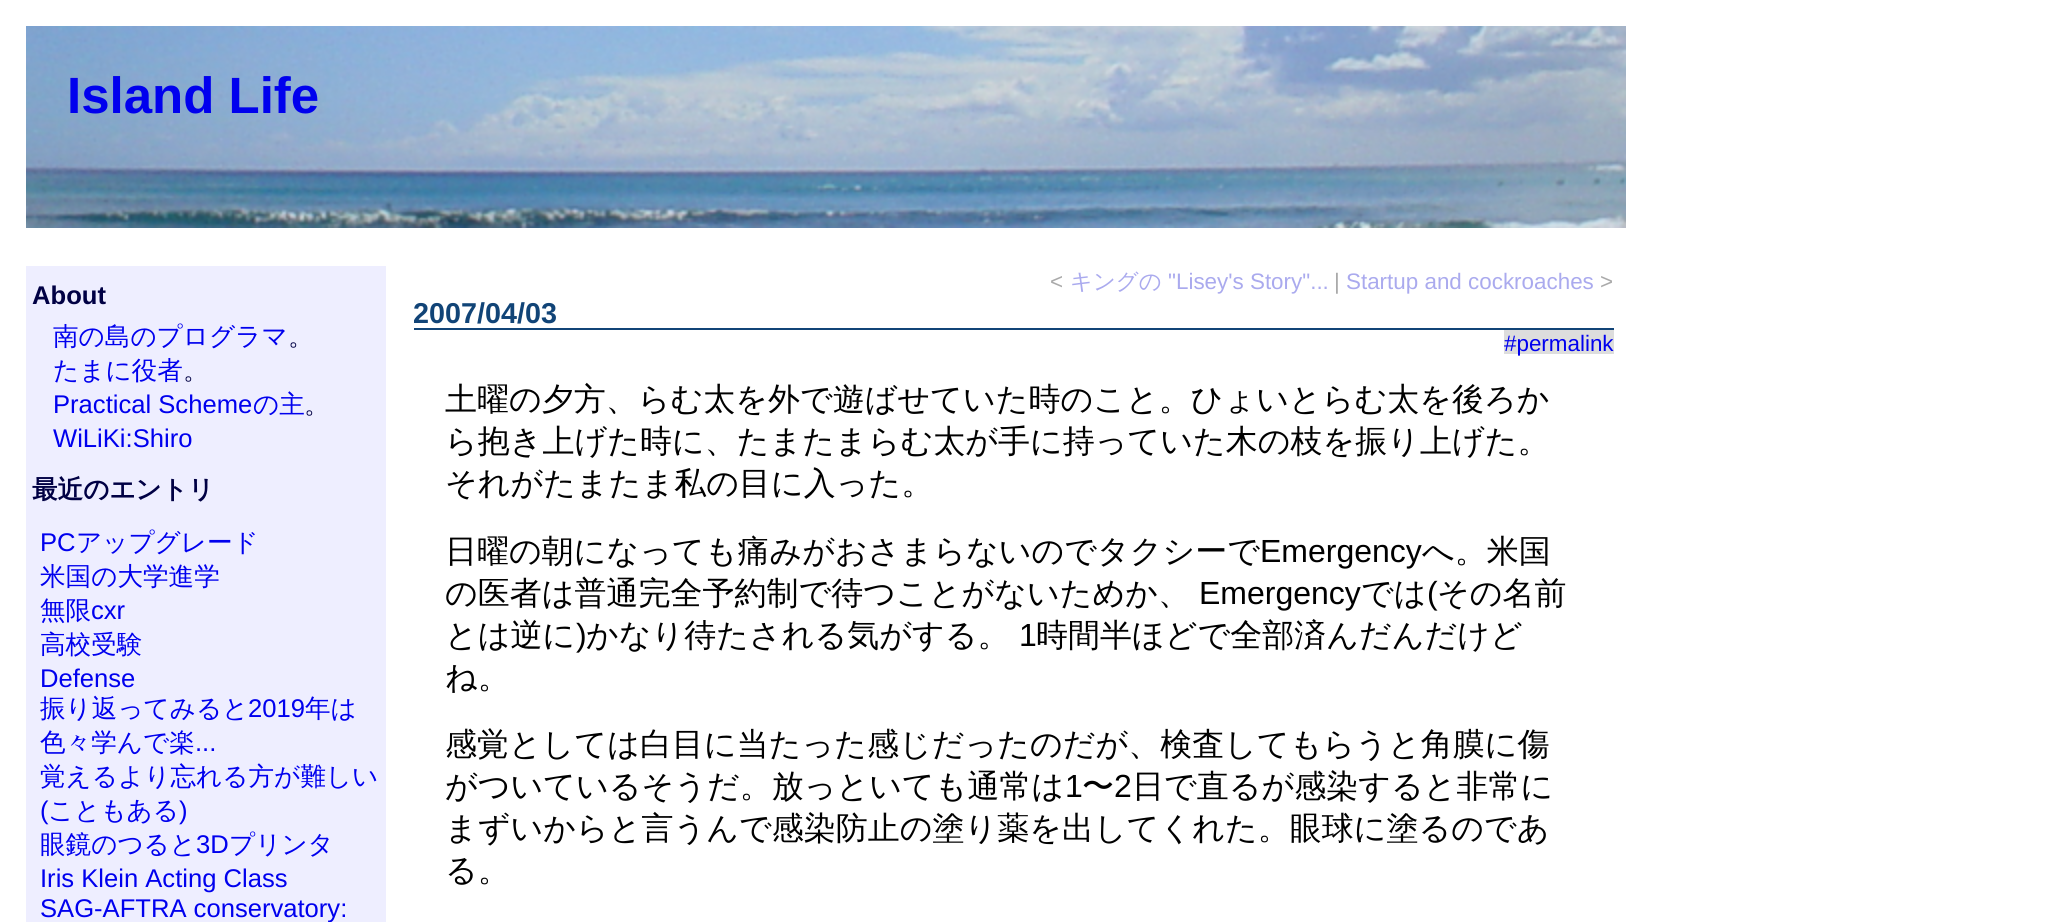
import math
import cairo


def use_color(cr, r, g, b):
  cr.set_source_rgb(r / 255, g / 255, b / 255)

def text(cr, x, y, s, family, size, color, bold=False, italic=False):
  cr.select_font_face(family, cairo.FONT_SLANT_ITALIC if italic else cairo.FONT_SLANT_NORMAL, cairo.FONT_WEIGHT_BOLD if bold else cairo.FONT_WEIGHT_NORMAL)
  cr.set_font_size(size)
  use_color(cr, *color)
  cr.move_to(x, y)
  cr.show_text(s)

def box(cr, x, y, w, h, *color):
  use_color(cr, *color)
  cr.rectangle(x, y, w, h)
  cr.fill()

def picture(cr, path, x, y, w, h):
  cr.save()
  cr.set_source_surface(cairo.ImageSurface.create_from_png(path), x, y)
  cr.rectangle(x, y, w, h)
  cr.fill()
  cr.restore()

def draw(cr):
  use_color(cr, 255, 255, 255)
  cr.paint()
  picture(cr, "img_01.png", 26, 26, 1600, 202)
  box(cr, 26, 266, 360, 656, 238, 238, 255)
  box(cr, 414, 328, 1200, 2, 17, 68, 119)
  box(cr, 1504, 330, 110, 24, 221, 221, 221)
  text(cr, 67, 113, "Island Life", "Liberation Sans", 51, (0, 0, 238), bold=True)
  text(cr, 32, 304, "About", "Liberation Sans", 25.6, (0, 0, 68), bold=True)
  text(cr, 53, 345, "南の島のプログラマ", "WenQuanYi Zen Hei Medium", 25.6, (0, 0, 238))
  text(cr, 288, 345, "。", "WenQuanYi Zen Hei Medium", 25.6, (0, 0, 68))
  text(cr, 53, 379, "たまに役者", "WenQuanYi Zen Hei Medium", 25.6, (0, 0, 238))
  text(cr, 183, 379, "。", "WenQuanYi Zen Hei Medium", 25.6, (0, 0, 68))
  text(cr, 53, 413, "Practical Scheme", "Liberation Sans", 25.6, (0, 0, 238))
  text(cr, 253, 413, "の主", "WenQuanYi Zen Hei Medium", 25.6, (0, 0, 238))
  text(cr, 304, 413, "。", "WenQuanYi Zen Hei Medium", 25.6, (0, 0, 68))
  text(cr, 53, 447, "WiLiKi:Shiro", "Liberation Sans", 25.6, (0, 0, 238))
  text(cr, 32, 498, "最近のエントリ", "WenQuanYi Zen Hei", 25.6, (0, 0, 68), bold=True)
  text(cr, 40, 551, "PC", "Liberation Sans", 25.6, (0, 0, 238))
  text(cr, 76, 551, "アップグレード", "WenQuanYi Zen Hei Medium", 25.6, (0, 0, 238))
  text(cr, 40, 585, "米国の大学進学", "WenQuanYi Zen Hei Medium", 25.6, (0, 0, 238))
  text(cr, 40, 619, "無限", "WenQuanYi Zen Hei Medium", 25.6, (0, 0, 238))
  text(cr, 91, 619, "cxr", "Liberation Sans", 25.6, (0, 0, 238))
  text(cr, 40, 653, "高校受験", "WenQuanYi Zen Hei Medium", 25.6, (0, 0, 238))
  text(cr, 40, 687, "Defense", "Liberation Sans", 25.6, (0, 0, 238))
  text(cr, 40, 717, "振り返ってみると", "WenQuanYi Zen Hei Medium", 25.6, (0, 0, 238))
  text(cr, 248, 717, "2019", "Liberation Sans", 25.6, (0, 0, 238))
  text(cr, 305, 717, "年は", "WenQuanYi Zen Hei Medium", 25.6, (0, 0, 238))
  text(cr, 40, 751, "色々学んで楽", "WenQuanYi Zen Hei Medium", 25.6, (0, 0, 238))
  text(cr, 195, 751, "...", "Liberation Sans", 25.6, (0, 0, 238))
  text(cr, 40, 785, "覚えるより忘れる方が難しい", "WenQuanYi Zen Hei Medium", 25.6, (0, 0, 238))
  text(cr, 40, 819, "(", "Liberation Sans", 25.6, (0, 0, 238))
  text(cr, 48, 819, "こともある", "WenQuanYi Zen Hei Medium", 25.6, (0, 0, 238))
  text(cr, 179, 819, ")", "Liberation Sans", 25.6, (0, 0, 238))
  text(cr, 40, 853, "眼鏡のつると", "WenQuanYi Zen Hei Medium", 25.6, (0, 0, 238))
  text(cr, 196, 853, "3D", "Liberation Sans", 25.6, (0, 0, 238))
  text(cr, 229, 853, "プリンタ", "WenQuanYi Zen Hei Medium", 25.6, (0, 0, 238))
  text(cr, 40, 887, "Iris Klein Acting Class", "Liberation Sans", 25.6, (0, 0, 238))
  text(cr, 40, 917, "SAG-AFTRA conservatory:", "Liberation Sans", 25.6, (0, 0, 238))
  text(cr, 1050, 289, "<", "Liberation Sans", 22.4, (170, 170, 170))
  text(cr, 1070, 289, "キングの", "WenQuanYi Zen Hei Medium", 22.4, (170, 170, 238))
  text(cr, 1168, 289, "\"Lisey's Story\"...", "Liberation Sans", 22.4, (170, 170, 238))
  text(cr, 1334, 289, "|", "Liberation Sans", 22.4, (170, 170, 170))
  text(cr, 1346, 289, "Startup and cockroaches", "Liberation Sans", 22.4, (170, 170, 238))
  text(cr, 1600, 289, ">", "Liberation Sans", 22.4, (170, 170, 170))
  text(cr, 413, 323, "2007/04/03", "Liberation Sans", 28.75, (17, 68, 119), bold=True)
  text(cr, 1504, 351, "#permalink", "Liberation Sans", 22.4, (0, 0, 238))
  text(cr, 445, 410, "土曜の夕方、らむ太を外で遊ばせていた時のこと。ひょいとらむ太を後ろか", "WenQuanYi Zen Hei Medium", 32, (0, 0, 0))
  text(cr, 445, 452, "ら抱き上げた時に、たまたまらむ太が手に持っていた木の枝を振り上げた。", "WenQuanYi Zen Hei Medium", 32, (0, 0, 0))
  text(cr, 445, 494, "それがたまたま私の目に入った。", "WenQuanYi Zen Hei Medium", 32, (0, 0, 0))
  text(cr, 445, 562, "日曜の朝になっても痛みがおさまらないのでタクシーで", "WenQuanYi Zen Hei Medium", 32, (0, 0, 0))
  text(cr, 1260, 562, "Emergency", "Liberation Sans", 32, (0, 0, 0))
  text(cr, 1422, 562, "へ。米国", "WenQuanYi Zen Hei Medium", 32, (0, 0, 0))
  text(cr, 445, 604, "の医者は普通完全予約制で待つことがないためか、", "WenQuanYi Zen Hei Medium", 32, (0, 0, 0))
  text(cr, 1199, 604, "Emergency", "Liberation Sans", 32, (0, 0, 0))
  text(cr, 1361, 604, "では", "WenQuanYi Zen Hei Medium", 32, (0, 0, 0))
  text(cr, 1427, 604, "(", "Liberation Sans", 32, (0, 0, 0))
  text(cr, 1437, 604, "その名前", "WenQuanYi Zen Hei Medium", 32, (0, 0, 0))
  text(cr, 445, 646, "とは逆に", "WenQuanYi Zen Hei Medium", 32, (0, 0, 0))
  text(cr, 576, 646, ")", "Liberation Sans", 32, (0, 0, 0))
  text(cr, 586, 646, "かなり待たされる気がする。", "WenQuanYi Zen Hei Medium", 32, (0, 0, 0))
  text(cr, 1019, 646, "1", "Liberation Sans", 32, (0, 0, 0))
  text(cr, 1036, 646, "時間半ほどで全部済んだんだけど", "WenQuanYi Zen Hei Medium", 32, (0, 0, 0))
  text(cr, 445, 688, "ね。", "WenQuanYi Zen Hei Medium", 32, (0, 0, 0))
  text(cr, 445, 755, "感覚としては白目に当たった感じだったのだが、検査してもらうと角膜に傷", "WenQuanYi Zen Hei Medium", 32, (0, 0, 0))
  text(cr, 445, 797, "がついているそうだ。放っといても通常は", "WenQuanYi Zen Hei Medium", 32, (0, 0, 0))
  text(cr, 1065, 797, "1", "Liberation Sans", 32, (0, 0, 0))
  text(cr, 1082, 797, "〜", "WenQuanYi Zen Hei Medium", 32, (0, 0, 0))
  text(cr, 1114, 797, "2", "Liberation Sans", 32, (0, 0, 0))
  text(cr, 1132, 797, "日で直るが感染すると非常に", "WenQuanYi Zen Hei Medium", 32, (0, 0, 0))
  text(cr, 445, 839, "まずいからと言うんで感染防止の塗り薬を出してくれた。眼球に塗るのであ", "WenQuanYi Zen Hei Medium", 32, (0, 0, 0))
  text(cr, 445, 881, "る。", "WenQuanYi Zen Hei Medium", 32, (0, 0, 0))


surface = cairo.ImageSurface(cairo.FORMAT_RGB24, 2045, 922)
cr = cairo.Context(surface)
options = cairo.FontOptions()
options.set_hint_metrics(cairo.HINT_METRICS_OFF)
options.set_hint_style(cairo.HINT_STYLE_NONE)
cr.set_font_options(options)
cr.set_miter_limit(4)
draw(cr)
surface.write_to_png("out.png")
